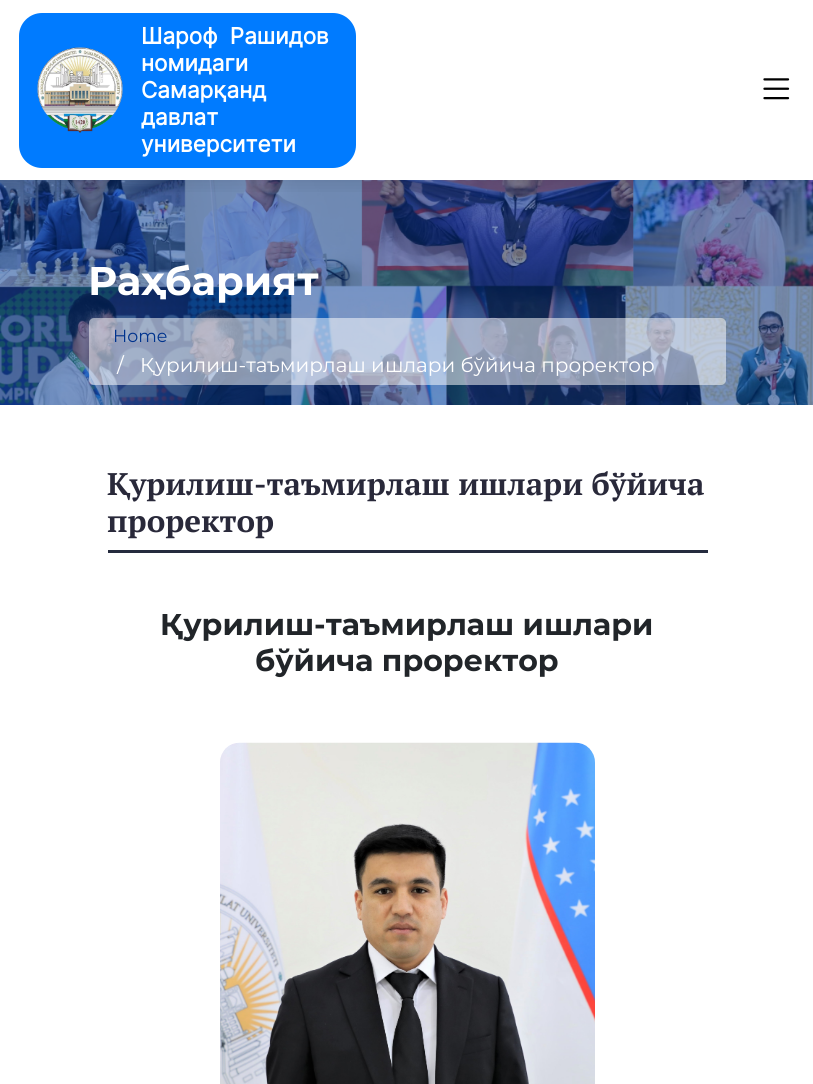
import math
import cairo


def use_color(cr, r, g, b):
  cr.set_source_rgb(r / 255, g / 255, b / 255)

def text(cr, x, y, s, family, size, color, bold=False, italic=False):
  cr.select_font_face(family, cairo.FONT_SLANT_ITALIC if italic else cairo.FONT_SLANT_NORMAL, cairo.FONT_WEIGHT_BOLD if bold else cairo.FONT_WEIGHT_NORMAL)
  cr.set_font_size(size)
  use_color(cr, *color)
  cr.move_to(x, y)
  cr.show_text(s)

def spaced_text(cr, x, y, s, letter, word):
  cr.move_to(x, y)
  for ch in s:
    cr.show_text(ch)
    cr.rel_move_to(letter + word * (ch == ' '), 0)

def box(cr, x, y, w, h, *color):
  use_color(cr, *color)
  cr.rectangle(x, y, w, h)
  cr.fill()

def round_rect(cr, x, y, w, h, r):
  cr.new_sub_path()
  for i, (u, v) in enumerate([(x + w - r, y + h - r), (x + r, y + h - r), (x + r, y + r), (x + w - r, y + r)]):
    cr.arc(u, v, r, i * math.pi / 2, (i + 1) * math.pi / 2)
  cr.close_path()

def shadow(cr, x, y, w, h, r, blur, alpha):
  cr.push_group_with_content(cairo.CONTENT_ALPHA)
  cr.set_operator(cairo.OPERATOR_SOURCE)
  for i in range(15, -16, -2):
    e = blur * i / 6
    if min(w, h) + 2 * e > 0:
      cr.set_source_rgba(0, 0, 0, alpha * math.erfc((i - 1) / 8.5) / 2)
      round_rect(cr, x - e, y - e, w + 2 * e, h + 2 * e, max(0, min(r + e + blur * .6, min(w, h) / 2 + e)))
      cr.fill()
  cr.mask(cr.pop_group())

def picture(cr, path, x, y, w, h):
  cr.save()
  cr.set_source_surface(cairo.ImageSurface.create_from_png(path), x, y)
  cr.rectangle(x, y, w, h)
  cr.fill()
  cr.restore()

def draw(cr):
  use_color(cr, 255, 255, 255)
  cr.paint()
  picture(cr, "img_03.png", 0, 180, 813, 225)
  cr.save()
  cr.rectangle(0, 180, 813, 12)
  cr.clip()
  use_color(cr, 0, 0, 0)
  shadow(cr, 0, 4, 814, 180, 0, 9.5, 0.1)
  cr.restore()
  use_color(cr, 0, 123, 255)
  round_rect(cr, 19, 13, 337, 155, 23)
  cr.fill()
  picture(cr, "img_01.png", 37, 47, 86, 86)
  picture(cr, "img_02.png", 763, 78, 27, 22)
  cr.set_source_rgba(1, 1, 1, 0.52)
  round_rect(cr, 89, 318, 637, 67, 5)
  cr.fill()
  box(cr, 108, 550, 600, 3, 37, 43, 62)
  picture(cr, "img_04.png", 220, 742, 375, 342)
  cr.select_font_face("Inter", cairo.FONT_SLANT_NORMAL, cairo.FONT_WEIGHT_BOLD)
  cr.set_font_size(22.5)
  use_color(cr, 255, 255, 255)
  spaced_text(cr, 141, 44, "Шароф Рашидов", 0, 6)
  text(cr, 141, 71, "номидаги", "Inter", 22.5, (255, 255, 255), bold=True)
  text(cr, 141, 98, "Самарқанд", "Inter", 22.5, (255, 255, 255), bold=True)
  text(cr, 141, 125, "давлат", "Inter", 22.5, (255, 255, 255), bold=True)
  text(cr, 141, 152, "университети", "Inter", 22.5, (255, 255, 255), bold=True)
  text(cr, 88, 295, "Раҳбарият", "Montserrat", 40, (255, 255, 255), bold=True)
  text(cr, 113, 342, "Home", "Montserrat", 17.5, (0, 51, 141))
  text(cr, 117, 372, "/", "Montserrat", 20, (255, 255, 255))
  text(cr, 140, 372, "Қурилиш-таъмирлаш ишлари бўйича проректор", "Montserrat", 20, (255, 255, 255))
  text(cr, 107, 495, "Қурилиш-таъмирлаш ишлари бўйича", "PT Serif", 31.25, (41, 41, 58), bold=True)
  text(cr, 107, 532, "проректор", "PT Serif", 31.25, (41, 41, 58), bold=True)
  text(cr, 160, 635, "Қурилиш-таъмирлаш ишлари", "Montserrat", 30, (33, 37, 41), bold=True)
  text(cr, 255, 671, "бўйича проректор", "Montserrat", 30, (33, 37, 41), bold=True)


surface = cairo.ImageSurface(cairo.FORMAT_RGB24, 813, 1084)
cr = cairo.Context(surface)
options = cairo.FontOptions()
options.set_hint_metrics(cairo.HINT_METRICS_OFF)
options.set_hint_style(cairo.HINT_STYLE_NONE)
cr.set_font_options(options)
cr.set_miter_limit(4)
draw(cr)
surface.write_to_png("out.png")
